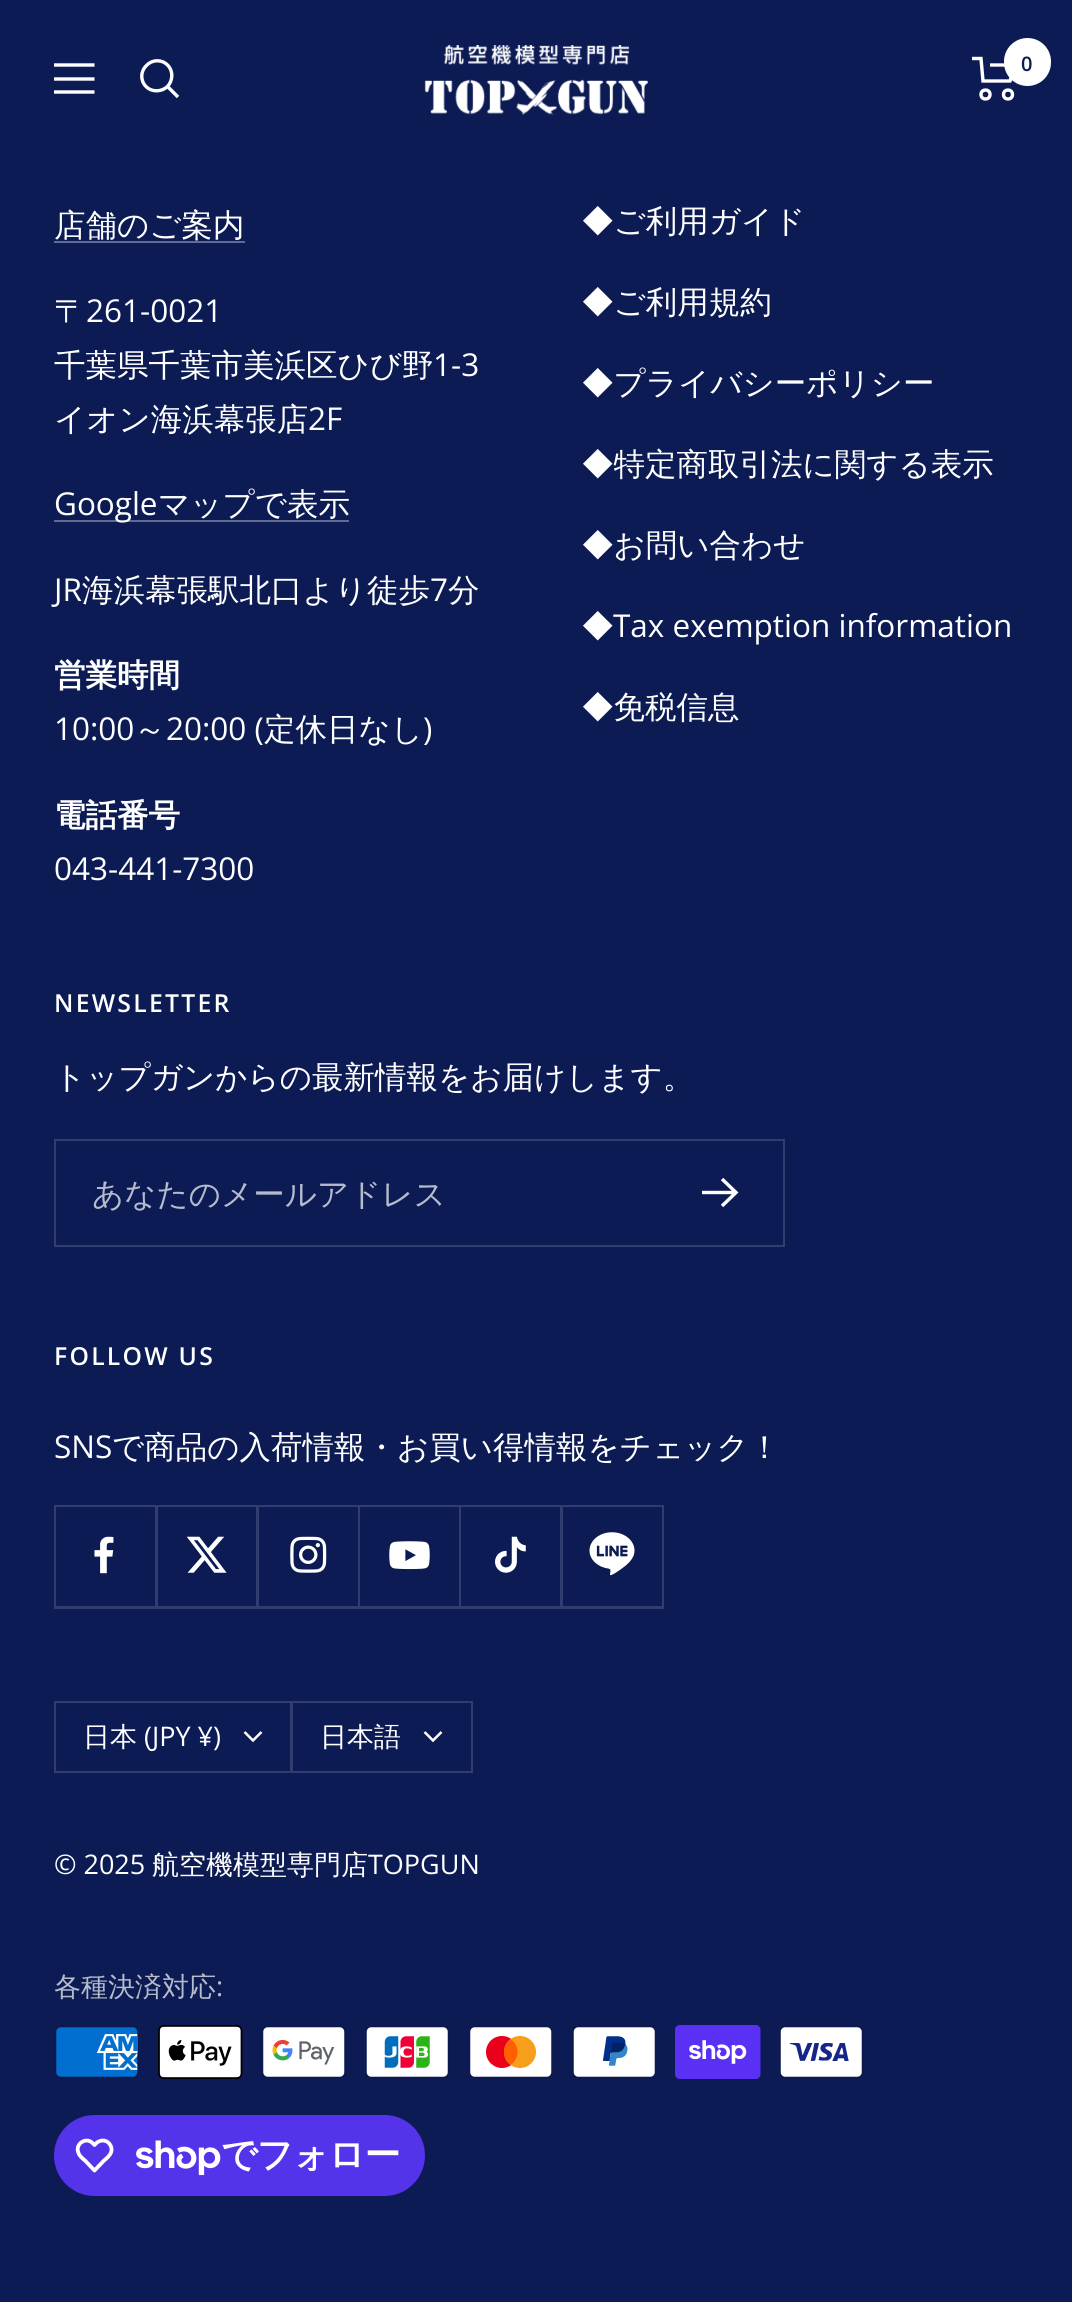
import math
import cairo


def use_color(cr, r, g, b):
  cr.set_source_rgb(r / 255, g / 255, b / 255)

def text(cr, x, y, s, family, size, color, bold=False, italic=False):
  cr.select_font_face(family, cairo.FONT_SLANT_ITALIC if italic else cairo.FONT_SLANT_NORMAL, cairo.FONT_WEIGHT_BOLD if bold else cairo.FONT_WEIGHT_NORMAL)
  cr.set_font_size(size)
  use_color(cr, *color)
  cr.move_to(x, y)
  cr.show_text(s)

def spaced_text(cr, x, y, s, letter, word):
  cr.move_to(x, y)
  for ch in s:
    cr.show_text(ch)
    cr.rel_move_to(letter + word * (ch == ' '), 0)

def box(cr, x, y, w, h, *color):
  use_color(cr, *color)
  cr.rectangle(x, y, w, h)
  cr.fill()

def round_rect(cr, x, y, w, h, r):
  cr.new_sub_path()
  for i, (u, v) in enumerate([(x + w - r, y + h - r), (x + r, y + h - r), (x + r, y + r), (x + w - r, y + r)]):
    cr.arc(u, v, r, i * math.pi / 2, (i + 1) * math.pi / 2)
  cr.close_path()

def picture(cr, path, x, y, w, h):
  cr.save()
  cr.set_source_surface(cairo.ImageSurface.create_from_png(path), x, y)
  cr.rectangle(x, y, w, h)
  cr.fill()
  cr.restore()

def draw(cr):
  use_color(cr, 12, 27, 84)
  cr.paint()
  cr.new_path()
  cr.move_to(54, 65)
  cr.line_to(94.5, 65)
  cr.move_to(54, 92)
  cr.line_to(94.5, 92)
  cr.close_path()
  cr.move_to(54, 79)
  cr.line_to(94.5, 79)
  cr.close_path()
  use_color(cr, 255, 255, 255)
  cr.set_line_width(3.4)
  cr.stroke()
  cr.new_path()
  cr.move_to(167.5, 86.5)
  cr.curve_to(173, 80.5, 173.5, 71, 167.5, 65)
  cr.curve_to(161.5, 59, 152, 59.5, 146.5, 65.5)
  cr.curve_to(140.5, 71, 140, 80.5, 146, 86.5)
  cr.curve_to(152, 92.5, 161.5, 92, 167.5, 86.5)
  cr.close_path()
  cr.move_to(167.5, 86.5)
  cr.line_to(178, 97)
  cr.stroke()
  picture(cr, "img_01.png", 424, 45, 225, 70)
  cr.new_path()
  cr.move_to(972, 58.5)
  cr.line_to(981, 58.5)
  cr.line_to(983, 81)
  cr.line_to(1010, 81)
  cr.line_to(1015, 65)
  cr.line_to(990, 65)
  cr.stroke()
  cr.arc(985.5, 94.5, 4.5, 0, 2 * math.pi)
  cr.stroke()
  cr.arc(1008, 94.5, 4.5, 0, 2 * math.pi)
  cr.stroke()
  round_rect(cr, 1004, 38, 47, 48, 23.5)
  cr.fill()
  box(cr, 54, 241, 191, 2, 97, 107, 144)
  box(cr, 54, 520, 295, 2, 97, 107, 144)
  cr.rectangle(55, 1140, 729, 106)
  use_color(cr, 48, 61, 110)
  cr.set_line_width(2)
  cr.stroke()
  cr.new_path()
  cr.move_to(702, 1192.5)
  cr.line_to(736, 1192.5)
  cr.move_to(722, 1179)
  cr.line_to(736, 1192.5)
  cr.line_to(722, 1206)
  use_color(cr, 255, 255, 255)
  cr.set_line_width(3.4)
  cr.stroke()
  use_color(cr, 48, 61, 110)
  cr.new_path()
  cr.move_to(56, 1606)
  cr.line_to(56, 1609)
  cr.line_to(158, 1609)
  cr.line_to(158, 1508)
  cr.line_to(155, 1508)
  cr.line_to(155, 1606)
  cr.close_path()
  cr.fill()
  box(cr, 54, 1607, 2, 2, 48, 61, 110)
  cr.new_path()
  cr.move_to(56, 1505)
  cr.line_to(155, 1505)
  cr.line_to(155, 1606)
  cr.line_to(56, 1606)
  cr.line_to(56, 1607)
  cr.line_to(158, 1607)
  cr.line_to(158, 1505)
  cr.close_path()
  cr.fill()
  box(cr, 54, 1505, 101, 2, 48, 61, 110)
  box(cr, 54, 1505, 2, 102, 48, 61, 110)
  picture(cr, "img_02.png", 94, 1536, 20, 38)
  cr.new_path()
  cr.move_to(158, 1606)
  cr.line_to(158, 1609)
  cr.line_to(259, 1609)
  cr.line_to(259, 1508)
  cr.line_to(256, 1508)
  cr.line_to(256, 1606)
  cr.close_path()
  cr.fill()
  cr.new_path()
  cr.move_to(158, 1505)
  cr.line_to(256, 1505)
  cr.line_to(256, 1606)
  cr.line_to(158, 1606)
  cr.line_to(158, 1607)
  cr.line_to(259, 1607)
  cr.line_to(259, 1505)
  cr.close_path()
  cr.fill()
  box(cr, 155, 1505, 102, 2, 48, 61, 110)
  picture(cr, "img_03.png", 186, 1536, 41, 37)
  cr.new_path()
  cr.move_to(259, 1606)
  cr.line_to(259, 1609)
  cr.line_to(360, 1609)
  cr.line_to(360, 1508)
  cr.line_to(358, 1508)
  cr.line_to(358, 1606)
  cr.close_path()
  cr.fill()
  cr.new_path()
  cr.move_to(259, 1505)
  cr.line_to(358, 1505)
  cr.line_to(358, 1606)
  cr.line_to(259, 1606)
  cr.line_to(259, 1607)
  cr.line_to(360, 1607)
  cr.line_to(360, 1505)
  cr.close_path()
  cr.fill()
  box(cr, 257, 1505, 101, 2, 48, 61, 110)
  picture(cr, "img_04.png", 290, 1536, 37, 37)
  cr.new_path()
  cr.move_to(360, 1606)
  cr.line_to(360, 1609)
  cr.line_to(461, 1609)
  cr.line_to(461, 1508)
  cr.line_to(459, 1508)
  cr.line_to(459, 1606)
  cr.close_path()
  cr.fill()
  cr.new_path()
  cr.move_to(360, 1505)
  cr.line_to(459, 1505)
  cr.line_to(459, 1606)
  cr.line_to(360, 1606)
  cr.line_to(360, 1607)
  cr.line_to(461, 1607)
  cr.line_to(461, 1505)
  cr.close_path()
  cr.fill()
  box(cr, 358, 1505, 101, 2, 48, 61, 110)
  picture(cr, "img_05.png", 389, 1541, 41, 29)
  cr.new_path()
  cr.move_to(461, 1606)
  cr.line_to(461, 1609)
  cr.line_to(563, 1609)
  cr.line_to(563, 1508)
  cr.line_to(560, 1508)
  cr.line_to(560, 1606)
  cr.close_path()
  cr.fill()
  cr.new_path()
  cr.move_to(461, 1505)
  cr.line_to(560, 1505)
  cr.line_to(560, 1606)
  cr.line_to(461, 1606)
  cr.line_to(461, 1607)
  cr.line_to(563, 1607)
  cr.line_to(563, 1505)
  cr.close_path()
  cr.fill()
  box(cr, 459, 1505, 101, 2, 48, 61, 110)
  picture(cr, "img_06.png", 495, 1536, 31, 37)
  cr.new_path()
  cr.move_to(563, 1606)
  cr.line_to(563, 1609)
  cr.line_to(664, 1609)
  cr.line_to(664, 1508)
  cr.line_to(662, 1508)
  cr.line_to(662, 1606)
  cr.close_path()
  cr.fill()
  cr.new_path()
  cr.move_to(563, 1505)
  cr.line_to(662, 1505)
  cr.line_to(662, 1606)
  cr.line_to(563, 1606)
  cr.line_to(563, 1607)
  cr.line_to(664, 1607)
  cr.line_to(664, 1505)
  cr.close_path()
  cr.fill()
  box(cr, 560, 1505, 102, 2, 48, 61, 110)
  picture(cr, "img_07.png", 589, 1532, 46, 44)
  cr.rectangle(55, 1702, 237, 70)
  cr.set_line_width(2)
  cr.stroke()
  cr.new_path()
  cr.move_to(244.5, 1732)
  cr.line_to(253, 1740.5)
  cr.line_to(261.5, 1732)
  use_color(cr, 255, 255, 255)
  cr.set_line_width(2.5)
  cr.stroke()
  cr.rectangle(291, 1702, 181, 70)
  use_color(cr, 48, 61, 110)
  cr.set_line_width(2)
  cr.stroke()
  cr.new_path()
  cr.move_to(424.5, 1732)
  cr.line_to(433, 1740.5)
  cr.line_to(441.5, 1732)
  use_color(cr, 255, 255, 255)
  cr.set_line_width(2.5)
  cr.stroke()
  picture(cr, "img_08.png", 54, 2025, 85, 54)
  picture(cr, "img_09.png", 158, 2025, 85, 54)
  picture(cr, "img_10.png", 261, 2025, 85, 54)
  picture(cr, "img_11.png", 365, 2025, 85, 54)
  picture(cr, "img_12.png", 468, 2025, 85, 54)
  picture(cr, "img_13.png", 572, 2025, 85, 54)
  picture(cr, "img_14.png", 675, 2025, 86, 54)
  picture(cr, "img_15.png", 779, 2025, 85, 54)
  use_color(cr, 84, 51, 235)
  round_rect(cr, 54, 2115, 371, 81, 40.5)
  cr.fill()
  cr.new_path()
  cr.move_to(92.5, 2143)
  cr.line_to(94.5, 2145)
  cr.curve_to(96, 2143.5, 97.5, 2141.5, 100, 2141)
  cr.curve_to(107, 2138.5, 113.5, 2146, 111, 2152.5)
  cr.curve_to(109.5, 2156, 106.5, 2158.5, 104, 2160.5)
  cr.line_to(94.5, 2170.5)
  cr.line_to(85, 2160.5)
  cr.curve_to(82.5, 2158.5, 79.5, 2156, 78.5, 2153)
  cr.curve_to(74.5, 2144, 86, 2136.5, 92.5, 2143)
  cr.close_path()
  use_color(cr, 255, 255, 255)
  cr.set_line_width(3.8)
  cr.set_line_join(cairo.LINE_JOIN_ROUND)
  cr.stroke()
  picture(cr, "img_16.png", 136, 2140, 85, 36)
  text(cr, 1021, 71, "0", "Open Sans SemiBold", 20, (12, 27, 84))
  text(cr, 54, 236, "店舗のご案内", "WenQuanYi Zen Hei Medium", 31.5, (255, 255, 255))
  text(cr, 54, 322, "〒", "WenQuanYi Zen Hei Medium", 31.5, (255, 255, 255))
  text(cr, 86, 322, "261-0021", "Open Sans", 31.5, (255, 255, 255))
  text(cr, 54, 376, "千葉県千葉市美浜区ひび野", "WenQuanYi Zen Hei Medium", 31.5, (255, 255, 255))
  text(cr, 433, 376, "1-3", "Open Sans", 31.5, (255, 255, 255))
  text(cr, 54, 430, "イオン海浜幕張店", "WenQuanYi Zen Hei Medium", 31.5, (255, 255, 255))
  text(cr, 308, 430, "2F", "Open Sans", 31.5, (255, 255, 255))
  text(cr, 54, 515, "Google", "Open Sans", 31.5, (255, 255, 255))
  text(cr, 158, 515, "マップで表示", "WenQuanYi Zen Hei Medium", 31.5, (255, 255, 255))
  text(cr, 54, 601, "JR", "Open Sans", 31.5, (255, 255, 255))
  text(cr, 82, 601, "海浜幕張駅北口より徒歩", "WenQuanYi Zen Hei Medium", 31.5, (255, 255, 255))
  text(cr, 430, 601, "7", "Open Sans", 31.5, (255, 255, 255))
  text(cr, 448, 601, "分", "WenQuanYi Zen Hei Medium", 31.5, (255, 255, 255))
  text(cr, 54, 686, "営業時間", "WenQuanYi Zen Hei", 31.5, (255, 255, 255), bold=True)
  text(cr, 54, 740, "10:00", "Open Sans", 31.5, (255, 255, 255))
  text(cr, 134, 740, "～", "WenQuanYi Zen Hei Medium", 31.5, (255, 255, 255))
  text(cr, 166, 740, "20:00 (", "Open Sans", 31.5, (255, 255, 255))
  text(cr, 264, 740, "定休日なし", "WenQuanYi Zen Hei Medium", 31.5, (255, 255, 255))
  text(cr, 423, 740, ")", "Open Sans", 31.5, (255, 255, 255))
  text(cr, 54, 826, "電話番号", "WenQuanYi Zen Hei", 31.5, (255, 255, 255), bold=True)
  text(cr, 54, 880, "043-441-7300", "Open Sans", 31.5, (255, 255, 255))
  text(cr, 582, 232, "◆ご利用ガイド", "WenQuanYi Zen Hei Medium", 31.5, (255, 255, 255))
  text(cr, 582, 313, "◆ご利用規約", "WenQuanYi Zen Hei Medium", 31.5, (255, 255, 255))
  text(cr, 582, 394, "◆プライバシーポリシー", "WenQuanYi Zen Hei Medium", 31.5, (255, 255, 255))
  text(cr, 582, 475, "◆特定商取引法に関する表示", "WenQuanYi Zen Hei Medium", 31.5, (255, 255, 255))
  text(cr, 582, 556, "◆お問い合わせ", "WenQuanYi Zen Hei Medium", 31.5, (255, 255, 255))
  text(cr, 582, 637, "◆", "WenQuanYi Zen Hei Medium", 31.5, (255, 255, 255))
  text(cr, 613, 637, "Tax exemption information", "Open Sans", 31.5, (255, 255, 255))
  text(cr, 582, 718, "◆免税信息", "WenQuanYi Zen Hei Medium", 31.5, (255, 255, 255))
  cr.select_font_face("Open Sans SemiBold")
  cr.set_font_size(24.75)
  spaced_text(cr, 54, 1012, "NEWSLETTER", 2.25, 0)
  text(cr, 54, 1088, "トップガンからの最新情報をお届けします。", "WenQuanYi Zen Hei Medium", 31.5, (255, 255, 255))
  text(cr, 92, 1205, "あなたのメールアドレス", "WenQuanYi Zen Hei Medium", 31.5, (182, 187, 204))
  cr.select_font_face("Open Sans SemiBold")
  cr.set_font_size(24.75)
  use_color(cr, 255, 255, 255)
  spaced_text(cr, 54, 1365, "FOLLOW US", 2.25, 0)
  text(cr, 54, 1458, "SNS", "Open Sans", 31.5, (255, 255, 255))
  text(cr, 112, 1458, "で商品の入荷情報・お買い得情報をチェック！", "WenQuanYi Zen Hei Medium", 31.5, (255, 255, 255))
  text(cr, 83, 1746, "日本", "WenQuanYi Zen Hei Medium", 27, (255, 255, 255))
  text(cr, 144, 1746, "(JPY ¥)", "Open Sans", 27, (255, 255, 255))
  text(cr, 320, 1746, "日本語", "WenQuanYi Zen Hei Medium", 27, (255, 255, 255))
  text(cr, 54, 1874, "© 2025", "Open Sans", 27, (255, 255, 255))
  text(cr, 152, 1874, "航空機模型専門店", "WenQuanYi Zen Hei Medium", 27, (255, 255, 255))
  text(cr, 368, 1874, "TOPGUN", "Open Sans", 27, (255, 255, 255))
  text(cr, 54, 1996, "各種決済対応", "WenQuanYi Zen Hei Medium", 27, (182, 187, 204))
  text(cr, 216, 1996, ":", "Open Sans", 27, (182, 187, 204))
  cr.select_font_face("WenQuanYi Zen Hei", cairo.FONT_SLANT_NORMAL, cairo.FONT_WEIGHT_BOLD)
  cr.set_font_size(36)
  use_color(cr, 255, 255, 255)
  spaced_text(cr, 221, 2167, "でフォロー", -1, 0)


surface = cairo.ImageSurface(cairo.FORMAT_RGB24, 1072, 2302)
cr = cairo.Context(surface)
options = cairo.FontOptions()
options.set_hint_metrics(cairo.HINT_METRICS_OFF)
options.set_hint_style(cairo.HINT_STYLE_NONE)
cr.set_font_options(options)
cr.set_miter_limit(4)
draw(cr)
surface.write_to_png("out.png")
